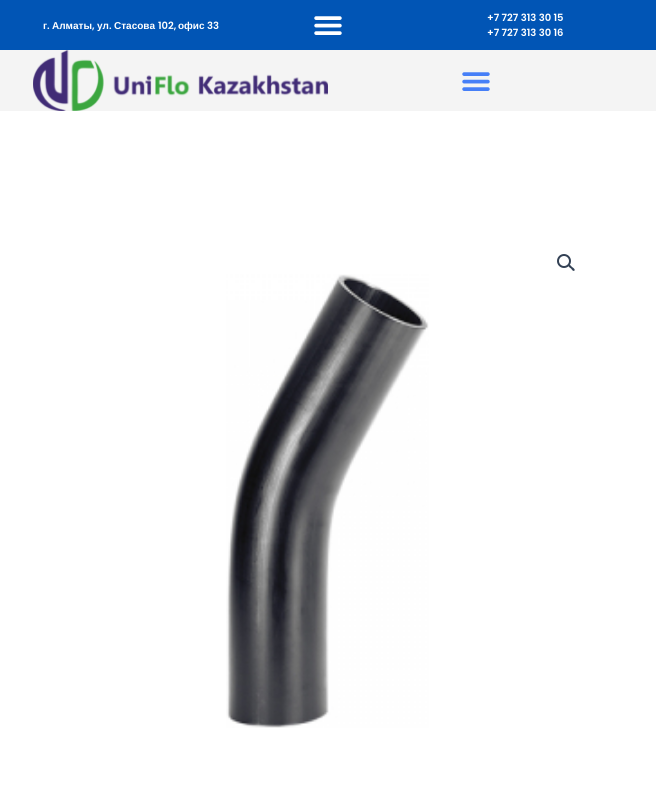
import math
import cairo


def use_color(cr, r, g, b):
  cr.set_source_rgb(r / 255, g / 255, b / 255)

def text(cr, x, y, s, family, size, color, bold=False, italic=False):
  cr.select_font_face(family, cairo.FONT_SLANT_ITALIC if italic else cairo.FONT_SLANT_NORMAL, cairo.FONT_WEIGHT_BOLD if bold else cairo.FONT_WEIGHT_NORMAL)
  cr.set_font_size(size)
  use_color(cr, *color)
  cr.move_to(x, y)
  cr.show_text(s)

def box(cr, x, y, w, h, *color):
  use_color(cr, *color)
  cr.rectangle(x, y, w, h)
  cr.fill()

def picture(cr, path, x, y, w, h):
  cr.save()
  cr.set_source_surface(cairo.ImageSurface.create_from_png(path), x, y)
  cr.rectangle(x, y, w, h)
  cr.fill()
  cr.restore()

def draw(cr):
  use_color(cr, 255, 255, 255)
  cr.paint()
  box(cr, 0, 0, 656, 50, 1, 85, 181)
  picture(cr, "img_01.png", 314, 16, 28, 19)
  box(cr, 0, 50, 656, 61, 244, 244, 244)
  picture(cr, "img_02.png", 33, 50, 295, 61)
  picture(cr, "img_03.png", 462, 72, 28, 19)
  cr.arc(564, 261, 6, 0, 2 * math.pi)
  use_color(cr, 51, 65, 85)
  cr.stroke()
  cr.new_path()
  cr.move_to(568.5, 265)
  cr.curve_to(570, 264, 571.5, 266.5, 572, 267)
  cr.curve_to(573, 267.5, 575.5, 269.5, 574.5, 270.5)
  cr.curve_to(573, 272, 571.5, 269, 571, 268.5)
  cr.curve_to(570, 268, 567.5, 266, 568.5, 265)
  cr.close_path()
  cr.fill()
  picture(cr, "img_04.png", 226, 274, 203, 454)
  text(cr, 43, 29, "г", "Liberation Sans", 10, (255, 255, 255), bold=True)
  text(cr, 47, 29, ".", "Poppins SemiBold", 10, (255, 255, 255))
  text(cr, 52, 29, "Алматы", "Liberation Sans", 10, (255, 255, 255), bold=True)
  text(cr, 92, 29, ",", "Poppins SemiBold", 10, (255, 255, 255))
  text(cr, 97, 29, "ул", "Liberation Sans", 10, (255, 255, 255), bold=True)
  text(cr, 109, 29, ".", "Poppins SemiBold", 10, (255, 255, 255))
  text(cr, 114, 29, "Стасова", "Liberation Sans", 10, (255, 255, 255), bold=True)
  text(cr, 158, 29, "102,", "Poppins SemiBold", 10, (255, 255, 255))
  text(cr, 178, 29, "офис", "Liberation Sans", 10, (255, 255, 255), bold=True)
  text(cr, 207, 29, "33", "Poppins SemiBold", 10, (255, 255, 255))
  text(cr, 487, 21, "+7 727 313 30 15", "Poppins SemiBold", 10, (255, 255, 255))
  text(cr, 487, 36, "+7 727 313 30 16", "Poppins SemiBold", 10, (255, 255, 255))


surface = cairo.ImageSurface(cairo.FORMAT_RGB24, 656, 804)
cr = cairo.Context(surface)
options = cairo.FontOptions()
options.set_hint_metrics(cairo.HINT_METRICS_OFF)
options.set_hint_style(cairo.HINT_STYLE_NONE)
cr.set_font_options(options)
cr.set_miter_limit(4)
draw(cr)
surface.write_to_png("out.png")
